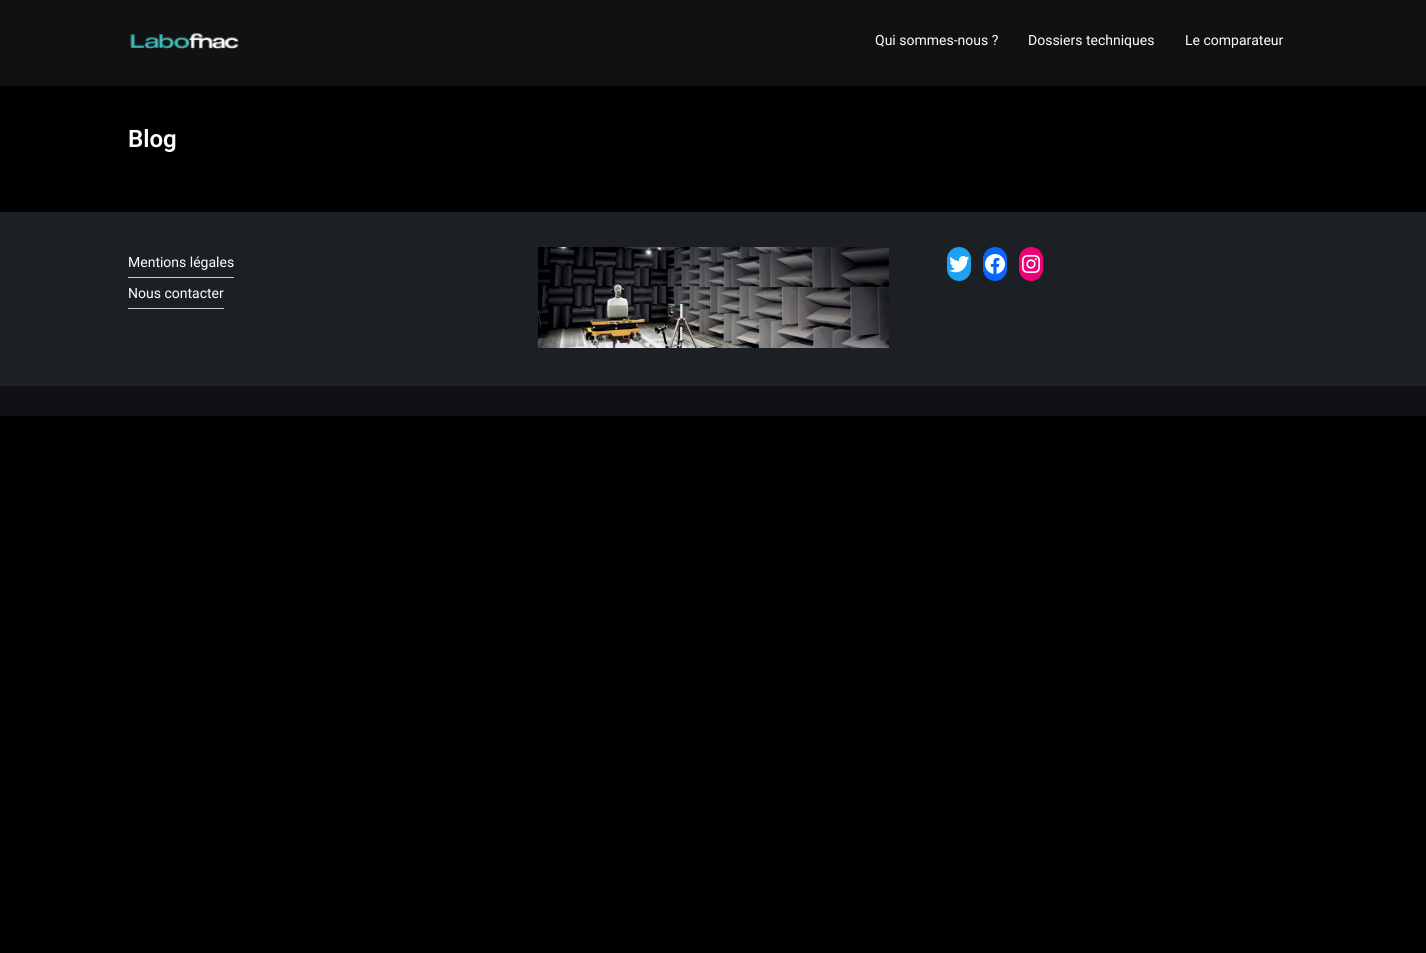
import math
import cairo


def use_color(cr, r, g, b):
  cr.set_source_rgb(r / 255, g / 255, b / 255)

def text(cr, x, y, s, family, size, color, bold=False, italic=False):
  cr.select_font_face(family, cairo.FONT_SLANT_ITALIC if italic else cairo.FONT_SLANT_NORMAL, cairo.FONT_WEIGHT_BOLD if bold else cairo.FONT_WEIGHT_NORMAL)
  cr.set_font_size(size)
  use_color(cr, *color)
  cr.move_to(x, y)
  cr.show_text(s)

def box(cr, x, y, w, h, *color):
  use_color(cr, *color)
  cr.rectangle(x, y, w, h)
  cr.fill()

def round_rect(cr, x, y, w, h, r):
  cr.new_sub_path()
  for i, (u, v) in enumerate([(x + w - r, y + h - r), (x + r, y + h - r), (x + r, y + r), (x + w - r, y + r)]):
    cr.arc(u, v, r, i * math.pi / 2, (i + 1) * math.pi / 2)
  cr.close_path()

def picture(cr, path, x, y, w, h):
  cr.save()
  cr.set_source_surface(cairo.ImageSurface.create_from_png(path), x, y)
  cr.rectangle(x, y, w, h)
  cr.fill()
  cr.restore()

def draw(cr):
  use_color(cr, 0, 0, 0)
  cr.paint()
  box(cr, 0, 0, 1426, 86, 17, 17, 17)
  picture(cr, "img_01.png", 130, 33, 109, 16)
  box(cr, 0, 212, 1426, 174, 28, 31, 36)
  box(cr, 128, 277, 106, 1, 204, 204, 204)
  box(cr, 128, 308, 96, 1, 204, 204, 204)
  picture(cr, "img_02.png", 538, 247, 351, 101)
  use_color(cr, 29, 161, 242)
  round_rect(cr, 947, 247, 24, 34, 12)
  cr.fill()
  picture(cr, "img_03.png", 949, 256, 20, 17)
  use_color(cr, 8, 102, 255)
  round_rect(cr, 983, 247, 24, 34, 12)
  cr.fill()
  picture(cr, "img_04.png", 985, 254, 20, 20)
  use_color(cr, 240, 0, 117)
  round_rect(cr, 1019, 247, 24, 34, 12)
  cr.fill()
  picture(cr, "img_05.png", 1022, 255, 18, 18)
  box(cr, 0, 386, 1426, 30, 15, 17, 20)
  text(cr, 875, 45, "Qui sommes-nous ?", "Roboto", 14, (255, 255, 255))
  text(cr, 1028, 45, "Dossiers techniques", "Roboto", 14, (255, 255, 255))
  text(cr, 1185, 45, "Le comparateur", "Roboto", 14, (255, 255, 255))
  text(cr, 128, 147, "Blog", "Roboto SemiBold", 24, (255, 255, 255))
  text(cr, 128, 267, "Mentions légales", "Roboto", 14, (255, 255, 255))
  text(cr, 128, 298, "Nous contacter", "Roboto", 14, (255, 255, 255))


surface = cairo.ImageSurface(cairo.FORMAT_RGB24, 1426, 953)
cr = cairo.Context(surface)
options = cairo.FontOptions()
options.set_hint_metrics(cairo.HINT_METRICS_OFF)
options.set_hint_style(cairo.HINT_STYLE_NONE)
cr.set_font_options(options)
cr.set_miter_limit(4)
draw(cr)
surface.write_to_png("out.png")
